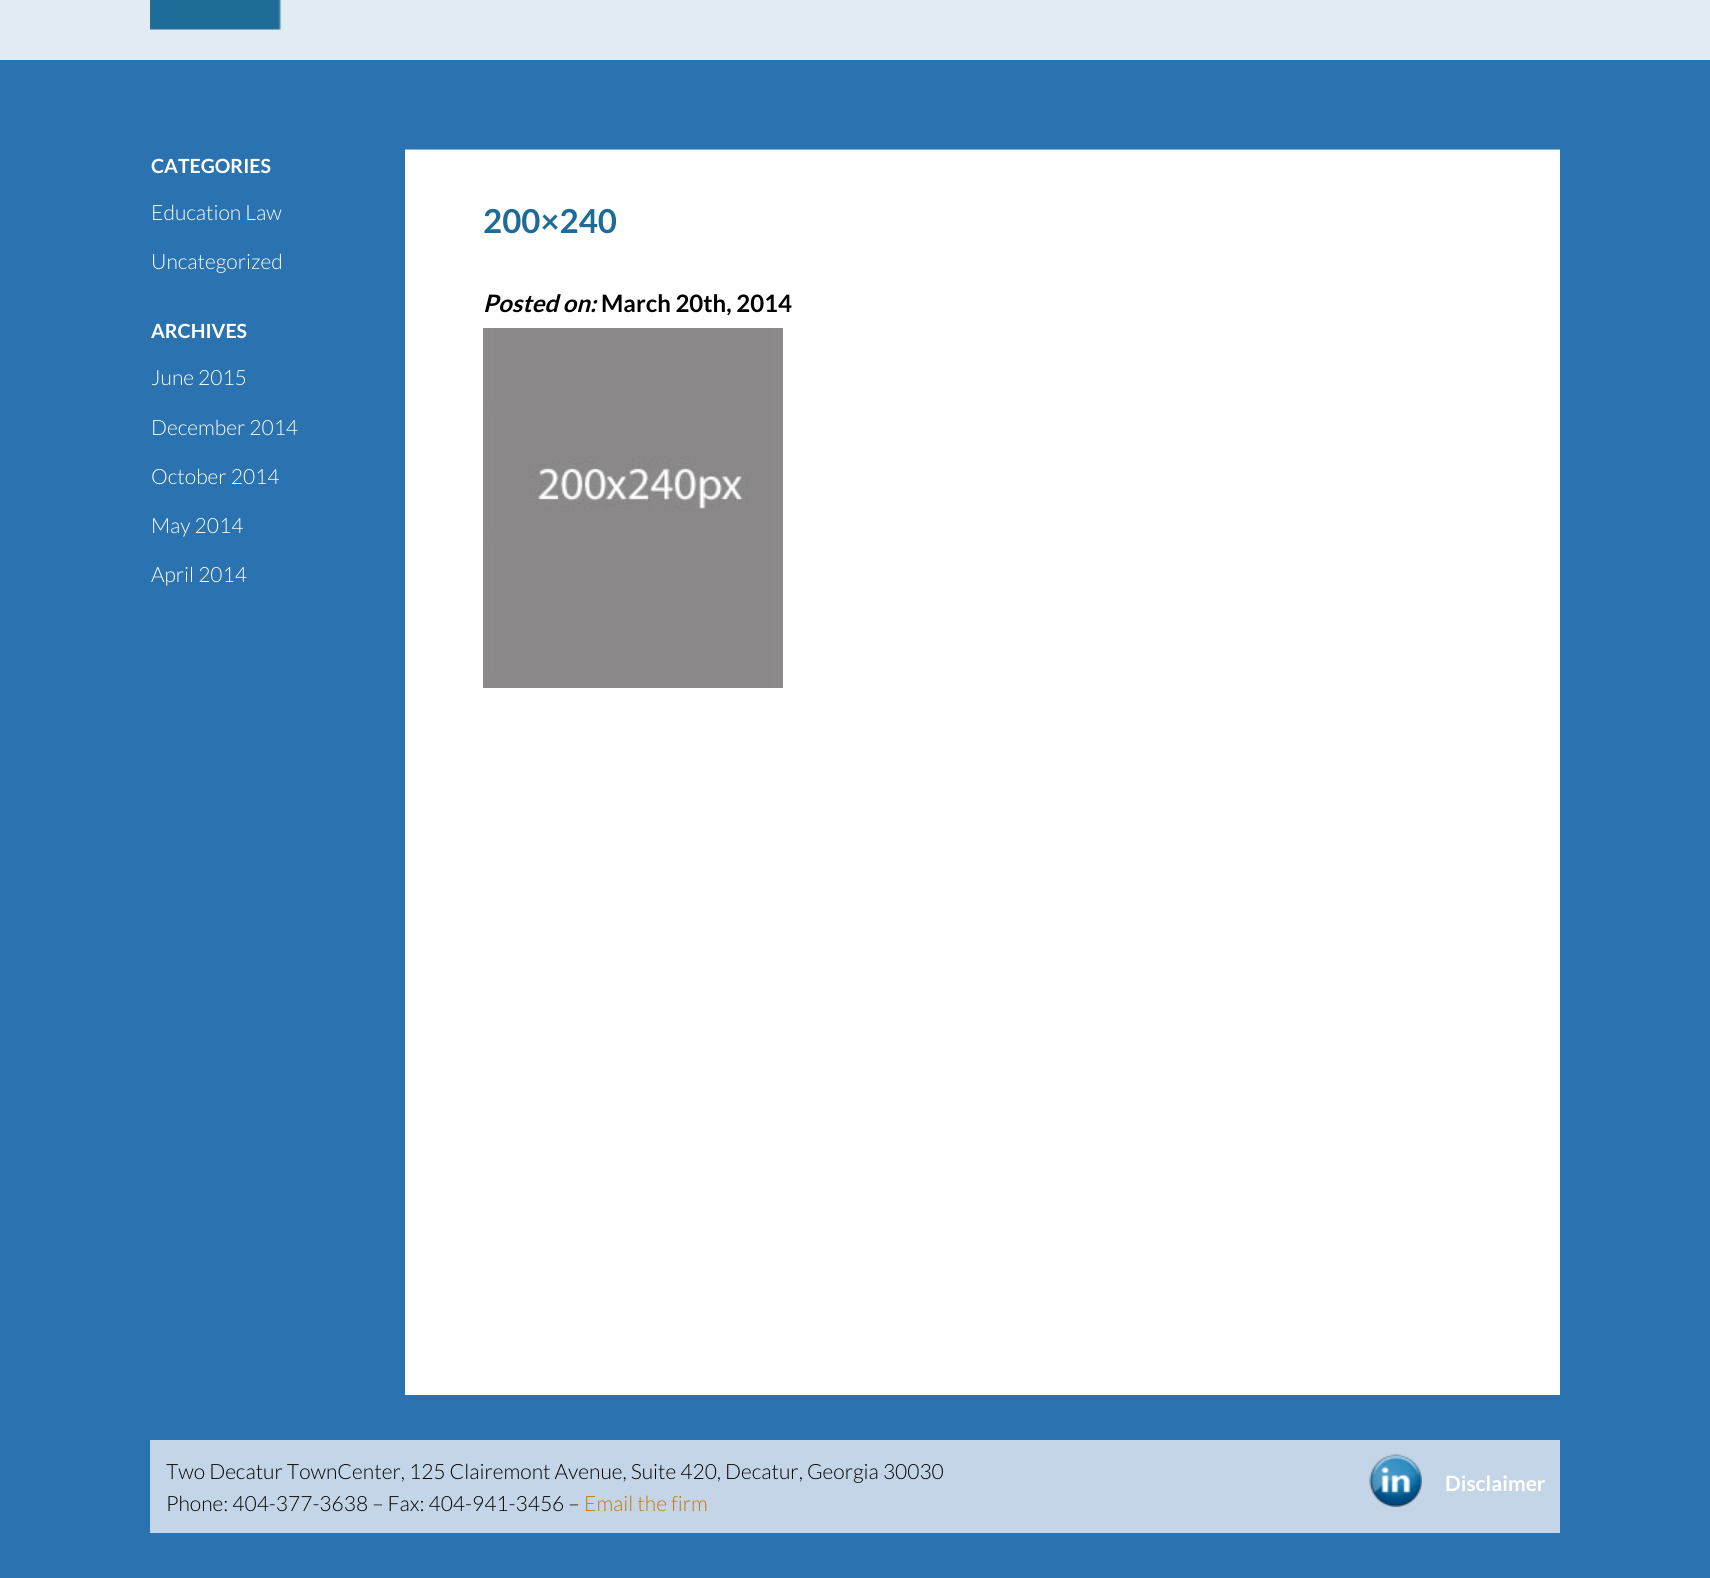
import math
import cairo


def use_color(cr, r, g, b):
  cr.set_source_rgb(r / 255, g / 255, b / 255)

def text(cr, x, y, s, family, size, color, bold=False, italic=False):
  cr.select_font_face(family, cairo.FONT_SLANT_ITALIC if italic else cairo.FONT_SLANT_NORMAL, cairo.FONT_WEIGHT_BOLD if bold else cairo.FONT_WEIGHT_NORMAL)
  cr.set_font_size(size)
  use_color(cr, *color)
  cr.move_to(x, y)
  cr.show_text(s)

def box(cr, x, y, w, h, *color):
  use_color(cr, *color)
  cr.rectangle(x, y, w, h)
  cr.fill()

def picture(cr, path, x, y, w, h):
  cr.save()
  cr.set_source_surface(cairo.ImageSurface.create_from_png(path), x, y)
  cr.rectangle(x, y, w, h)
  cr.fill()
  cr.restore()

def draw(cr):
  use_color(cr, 43, 115, 176)
  cr.paint()
  box(cr, 0, 0, 1710, 60, 226, 234, 242)
  picture(cr, "img_01.png", 150, 0, 132, 30)
  box(cr, 405, 150, 1155, 1245, 255, 255, 255)
  box(cr, 405, 149, 1155, 1, 134, 175, 210)
  picture(cr, "img_02.png", 483, 328, 300, 360)
  box(cr, 150, 1440, 1410, 93, 195, 213, 231)
  picture(cr, "img_03.png", 1369, 1454, 53, 53)
  text(cr, 151, 173, "CATEGORIES", "Lato", 19.5, (255, 255, 255), bold=True)
  text(cr, 151, 220, "Education Law", "Lato Light", 21, (255, 255, 255))
  text(cr, 151, 269, "Uncategorized", "Lato Light", 21, (255, 255, 255))
  text(cr, 151, 338, "ARCHIVES", "Lato", 19.5, (255, 255, 255), bold=True)
  text(cr, 151, 385, "June 2015", "Lato Light", 21, (255, 255, 255))
  text(cr, 151, 435, "December 2014", "Lato Light", 21, (255, 255, 255))
  text(cr, 151, 484, "October 2014", "Lato Light", 21, (255, 255, 255))
  text(cr, 151, 533, "May 2014", "Lato Light", 21, (255, 255, 255))
  text(cr, 151, 582, "April 2014", "Lato Light", 21, (255, 255, 255))
  text(cr, 483, 233, "200×240", "Lato", 33, (31, 107, 151), bold=True)
  text(cr, 483, 312, "Posted on:", "Lato", 24, (0, 0, 0), bold=True, italic=True)
  text(cr, 601, 312, "March 20th, 2014", "Lato", 24, (0, 0, 0), bold=True)
  text(cr, 166, 1479, "Two Decatur TownCenter, 125 Clairemont Avenue, Suite 420, Decatur, Georgia 30030", "Lato Light", 21, (0, 0, 0))
  text(cr, 166, 1511, "Phone: 404-377-3638 – Fax: 404-941-3456 –", "Lato Light", 21, (0, 0, 0))
  text(cr, 584, 1511, "Email the firm", "Lato Light", 21, (204, 116, 0))
  text(cr, 1445, 1491, "Disclaimer", "Lato", 21, (255, 255, 255), bold=True)


surface = cairo.ImageSurface(cairo.FORMAT_RGB24, 1710, 1578)
cr = cairo.Context(surface)
options = cairo.FontOptions()
options.set_hint_metrics(cairo.HINT_METRICS_OFF)
options.set_hint_style(cairo.HINT_STYLE_NONE)
cr.set_font_options(options)
cr.set_miter_limit(4)
draw(cr)
surface.write_to_png("out.png")
